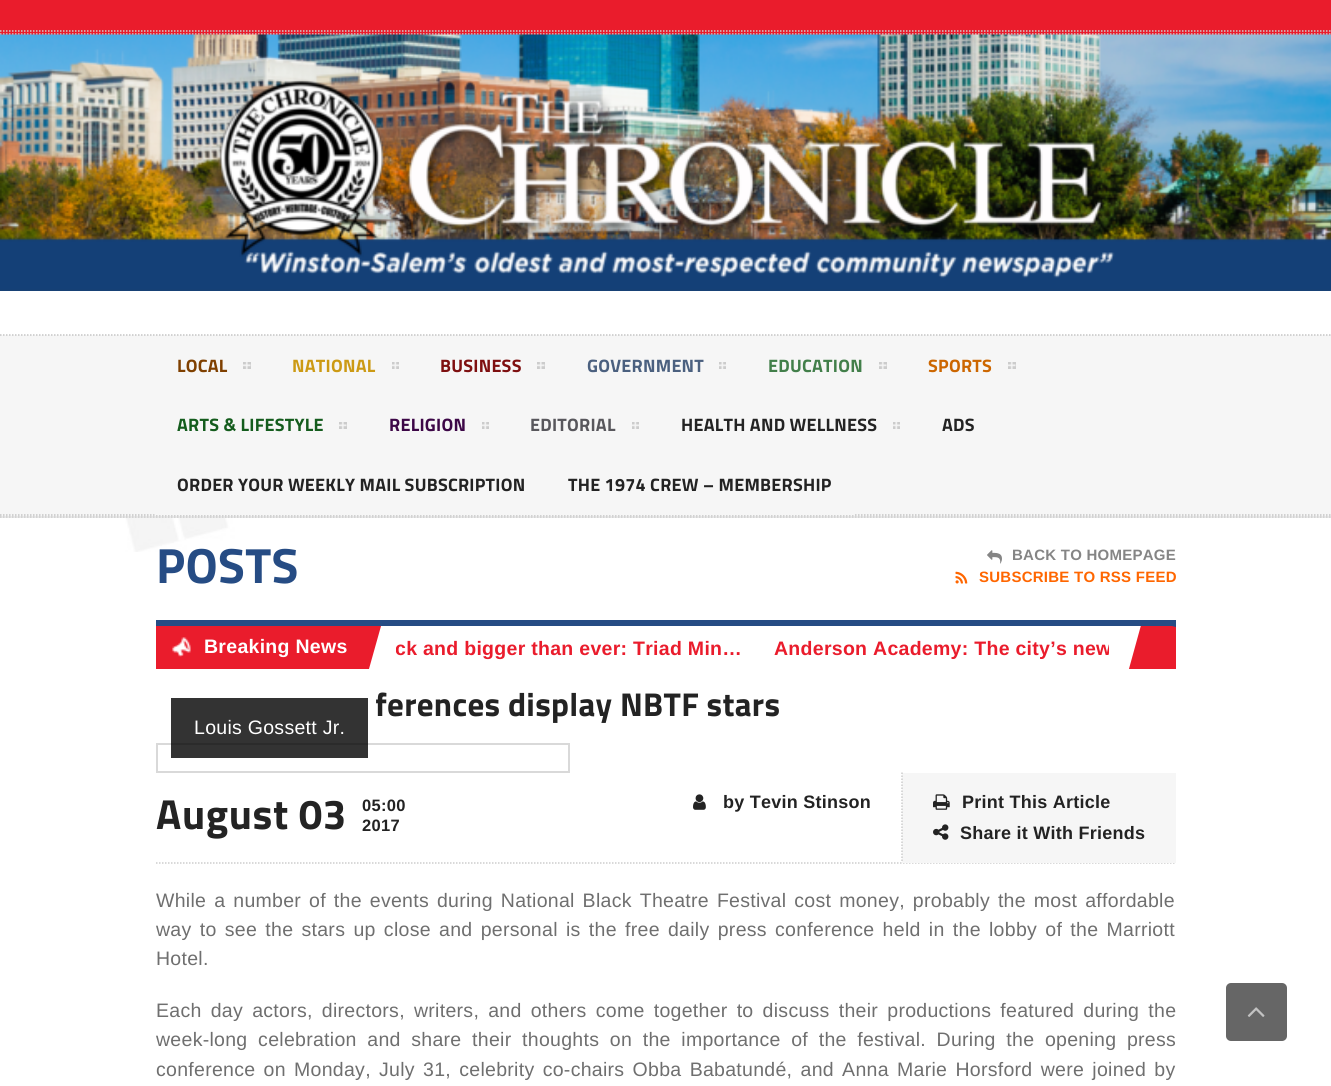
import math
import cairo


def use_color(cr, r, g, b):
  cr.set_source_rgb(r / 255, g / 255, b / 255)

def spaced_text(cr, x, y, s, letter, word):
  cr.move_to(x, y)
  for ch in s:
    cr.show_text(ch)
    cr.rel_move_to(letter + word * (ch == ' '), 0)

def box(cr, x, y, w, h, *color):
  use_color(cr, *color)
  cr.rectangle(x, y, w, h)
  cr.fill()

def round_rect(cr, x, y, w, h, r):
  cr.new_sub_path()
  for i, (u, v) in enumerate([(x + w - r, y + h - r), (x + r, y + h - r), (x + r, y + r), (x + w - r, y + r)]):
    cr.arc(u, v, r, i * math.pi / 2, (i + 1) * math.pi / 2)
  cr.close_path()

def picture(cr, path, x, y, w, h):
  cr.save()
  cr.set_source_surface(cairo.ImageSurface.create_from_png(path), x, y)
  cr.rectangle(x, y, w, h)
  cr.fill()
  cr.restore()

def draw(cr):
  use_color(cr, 255, 255, 255)
  cr.paint()
  picture(cr, "img_01.png", 0, 518, 1331, 34)
  box(cr, 0, 0, 1331, 35, 234, 28, 44)
  cr.new_path()
  cr.move_to(0, 31)
  cr.line_to(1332, 31)
  use_color(cr, 204, 204, 204)
  cr.set_line_width(1.5)
  cr.set_dash([1.5, 1.5])
  cr.stroke()
  cr.new_path()
  cr.move_to(0, 34)
  cr.line_to(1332, 34)
  cr.stroke()
  picture(cr, "img_02.png", 0, 34, 1331, 257)
  box(cr, 0, 335, 1331, 181, 246, 246, 246)
  cr.new_path()
  cr.move_to(0, 335)
  cr.line_to(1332, 335)
  use_color(cr, 197, 197, 197)
  cr.stroke()
  cr.new_path()
  cr.move_to(0, 515)
  cr.line_to(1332, 515)
  cr.stroke()
  box(cr, 243, 362, 8, 7, 204, 204, 204)
  picture(cr, "img_03.png", 243, 362, 8, 7)
  box(cr, 392, 362, 7, 7, 204, 204, 204)
  picture(cr, "img_04.png", 392, 362, 7, 7)
  box(cr, 537, 362, 8, 7, 204, 204, 204)
  picture(cr, "img_03.png", 537, 362, 8, 7)
  box(cr, 719, 362, 7, 7, 204, 204, 204)
  picture(cr, "img_04.png", 719, 362, 7, 7)
  box(cr, 879, 362, 8, 7, 204, 204, 204)
  picture(cr, "img_03.png", 879, 362, 8, 7)
  box(cr, 1008, 362, 8, 7, 204, 204, 204)
  picture(cr, "img_03.png", 1008, 362, 8, 7)
  box(cr, 339, 422, 8, 7, 204, 204, 204)
  picture(cr, "img_05.png", 339, 422, 8, 7)
  box(cr, 482, 422, 7, 7, 204, 204, 204)
  picture(cr, "img_06.png", 482, 422, 7, 7)
  box(cr, 632, 422, 7, 7, 204, 204, 204)
  picture(cr, "img_04.png", 632, 422, 7, 7)
  box(cr, 893, 422, 7, 7, 204, 204, 204)
  picture(cr, "img_06.png", 893, 422, 7, 7)
  box(cr, 156, 514, 392, 1, 246, 246, 246)
  box(cr, 549, 514, 305, 1, 246, 246, 246)
  box(cr, 0, 516, 1331, 2, 232, 232, 232)
  cr.new_path()
  cr.move_to(0, 517)
  cr.line_to(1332, 517)
  use_color(cr, 204, 204, 204)
  cr.stroke()
  box(cr, 156, 620, 1020, 6, 38, 76, 132)
  picture(cr, "img_07.png", 987, 550, 15, 14)
  picture(cr, "img_08.png", 955, 571, 13, 13)
  box(cr, 156, 626, 184, 43, 234, 28, 44)
  picture(cr, "img_09.png", 172, 637, 19, 20)
  cr.save()
  cr.rectangle(156, 626, 1020, 43)
  cr.clip()
  cr.new_path()
  cr.move_to(325, 603)
  cr.line_to(383, 619)
  cr.line_to(367, 676)
  cr.line_to(309, 661)
  cr.close_path()
  cr.fill()
  cr.restore()
  box(cr, 1172, 626, 4, 2, 38, 76, 132)
  cr.save()
  cr.rectangle(156, 626, 1020, 43)
  cr.clip()
  use_color(cr, 234, 28, 44)
  cr.new_path()
  cr.move_to(1143, 618)
  cr.line_to(1201, 634)
  cr.line_to(1185, 691)
  cr.line_to(1127, 676)
  cr.close_path()
  cr.fill()
  cr.restore()
  cr.rectangle(157, 744, 412, 28)
  use_color(cr, 217, 217, 217)
  cr.set_line_width(2)
  cr.set_dash([])
  cr.stroke()
  cr.set_source_rgba(0, 0, 0, 0.8)
  cr.rectangle(171, 698, 197, 60)
  cr.fill()
  cr.new_path()
  cr.move_to(156, 863)
  cr.line_to(1176, 863)
  use_color(cr, 204, 204, 204)
  cr.set_line_width(1.5)
  cr.set_dash([1.5, 1.5])
  cr.stroke()
  picture(cr, "img_10.png", 693, 794, 13, 16)
  box(cr, 902, 773, 274, 90, 246, 246, 246)
  cr.new_path()
  cr.move_to(902, 772.5)
  cr.line_to(902, 862.5)
  use_color(cr, 204, 204, 204)
  cr.stroke()
  picture(cr, "img_11.png", 933, 794, 17, 16)
  picture(cr, "img_12.png", 933, 824, 16, 16)
  use_color(cr, 102, 102, 102)
  round_rect(cr, 1226, 983, 61, 58, 5)
  cr.fill()
  picture(cr, "img_13.png", 1247, 1007, 18, 10)
  cr.select_font_face("Titillium Web", cairo.FONT_SLANT_NORMAL, cairo.FONT_WEIGHT_BOLD)
  cr.set_font_size(18)
  use_color(cr, 127, 64, 0)
  spaced_text(cr, 177, 372, "LOCAL", 0.25, 0)
  use_color(cr, 204, 154, 20)
  spaced_text(cr, 292, 372, "NATIONAL", 0.25, 0)
  use_color(cr, 126, 15, 16)
  spaced_text(cr, 440, 372, "BUSINESS", 0.25, 0)
  use_color(cr, 75, 96, 127)
  spaced_text(cr, 587, 372, "GOVERNMENT", 0.25, 0)
  use_color(cr, 66, 127, 74)
  spaced_text(cr, 768, 372, "EDUCATION", 0.25, 0)
  use_color(cr, 204, 102, 0)
  spaced_text(cr, 928, 372, "SPORTS", 0.25, 0)
  use_color(cr, 20, 92, 29)
  spaced_text(cr, 177, 431, "ARTS & LIFESTYLE", 0.25, 0)
  use_color(cr, 61, 7, 71)
  spaced_text(cr, 389, 431, "RELIGION", 0.25, 0)
  use_color(cr, 88, 87, 92)
  spaced_text(cr, 530, 431, "EDITORIAL", 0.25, 0)
  use_color(cr, 35, 35, 35)
  spaced_text(cr, 681, 431, "HEALTH AND WELLNESS", 0.25, 0)
  spaced_text(cr, 942, 431, "ADS", 0.25, 0)
  spaced_text(cr, 177, 491, "ORDER YOUR WEEKLY MAIL SUBSCRIPTION", 0.25, 0)
  spaced_text(cr, 568, 491, "THE 1974 CREW – MEMBERSHIP", 0.25, 0)
  cr.set_font_size(49.5)
  use_color(cr, 38, 76, 132)
  spaced_text(cr, 156, 583, "POSTS", 0.29, 0)
  cr.select_font_face("Liberation Sans", cairo.FONT_SLANT_NORMAL, cairo.FONT_WEIGHT_BOLD)
  cr.set_font_size(15)
  use_color(cr, 133, 133, 133)
  spaced_text(cr, 1012, 560, "BACK TO HOMEPAGE", 0.25, 0)
  use_color(cr, 255, 102, 0)
  spaced_text(cr, 979, 582, "SUBSCRIBE TO RSS FEED", 0.25, 0)
  cr.set_font_size(19.5)
  use_color(cr, 255, 255, 255)
  spaced_text(cr, 204, 653, "Breaking News", 0.29, 0)
  cr.save()
  cr.rectangle(396, 635, 348, 28)
  cr.clip()
  use_color(cr, 234, 28, 44)
  spaced_text(cr, 395, 655, "ck and bigger than ever: Triad Min…", 0.29, 0)
  cr.restore()
  cr.save()
  cr.rectangle(774, 635, 335, 28)
  cr.clip()
  use_color(cr, 234, 28, 44)
  spaced_text(cr, 774, 655, "Anderson Academy: The city’s new", 0.29, 0)
  cr.restore()
  cr.select_font_face("Titillium Web", cairo.FONT_SLANT_NORMAL, cairo.FONT_WEIGHT_BOLD)
  cr.set_font_size(33)
  use_color(cr, 35, 35, 35)
  spaced_text(cr, 375, 716, "ferences display NBTF stars", 0.29, 0)
  cr.select_font_face("Liberation Sans")
  cr.set_font_size(19.5)
  use_color(cr, 255, 255, 255)
  spaced_text(cr, 194, 734, "Louis Gossett Jr.", 0.29, 0)
  cr.select_font_face("Titillium Web", cairo.FONT_SLANT_NORMAL, cairo.FONT_WEIGHT_BOLD)
  cr.set_font_size(42)
  use_color(cr, 35, 35, 35)
  spaced_text(cr, 156, 829, "August 03", 0.6, 0)
  cr.select_font_face("Liberation Sans", cairo.FONT_SLANT_NORMAL, cairo.FONT_WEIGHT_BOLD)
  cr.set_font_size(16.5)
  spaced_text(cr, 362, 811, "05:00", 0.29, 0)
  spaced_text(cr, 362, 831, "2017", 0.29, 0)
  cr.set_font_size(18)
  spaced_text(cr, 723, 808, "by Tevin Stinson", 0.25, 0)
  spaced_text(cr, 962, 808, "Print This Article", 0.25, 0)
  spaced_text(cr, 960, 839, "Share it With Friends", 0.25, 0)
  cr.select_font_face("Liberation Sans")
  cr.set_font_size(19.5)
  use_color(cr, 111, 111, 111)
  spaced_text(cr, 156, 907, "While a number of the events during National Black Theatre Festival cost money, probably the most affordable", 0.29, 2.25)
  spaced_text(cr, 156, 936, "way to see the stars up close and personal is the free daily press conference held in the lobby of the Marriott", 0.29, 2.5)
  spaced_text(cr, 156, 965, "Hotel.", 0.29, 0)
  spaced_text(cr, 156, 1017, "Each day actors, directors, writers, and others come together to discuss their productions featured during the", 0.29, 3.4)
  spaced_text(cr, 156, 1046, "week-long celebration and share their thoughts on the importance of the festival. During the opening press", 0.29, 4.9)
  spaced_text(cr, 156, 1076, "conference on Monday, July 31, celebrity co-chairs Obba Babatundé, and Anna Marie Horsford were joined by", 0.29, 2.5)


surface = cairo.ImageSurface(cairo.FORMAT_RGB24, 1331, 1086)
cr = cairo.Context(surface)
options = cairo.FontOptions()
options.set_hint_metrics(cairo.HINT_METRICS_OFF)
options.set_hint_style(cairo.HINT_STYLE_NONE)
cr.set_font_options(options)
cr.set_miter_limit(4)
draw(cr)
surface.write_to_png("out.png")
